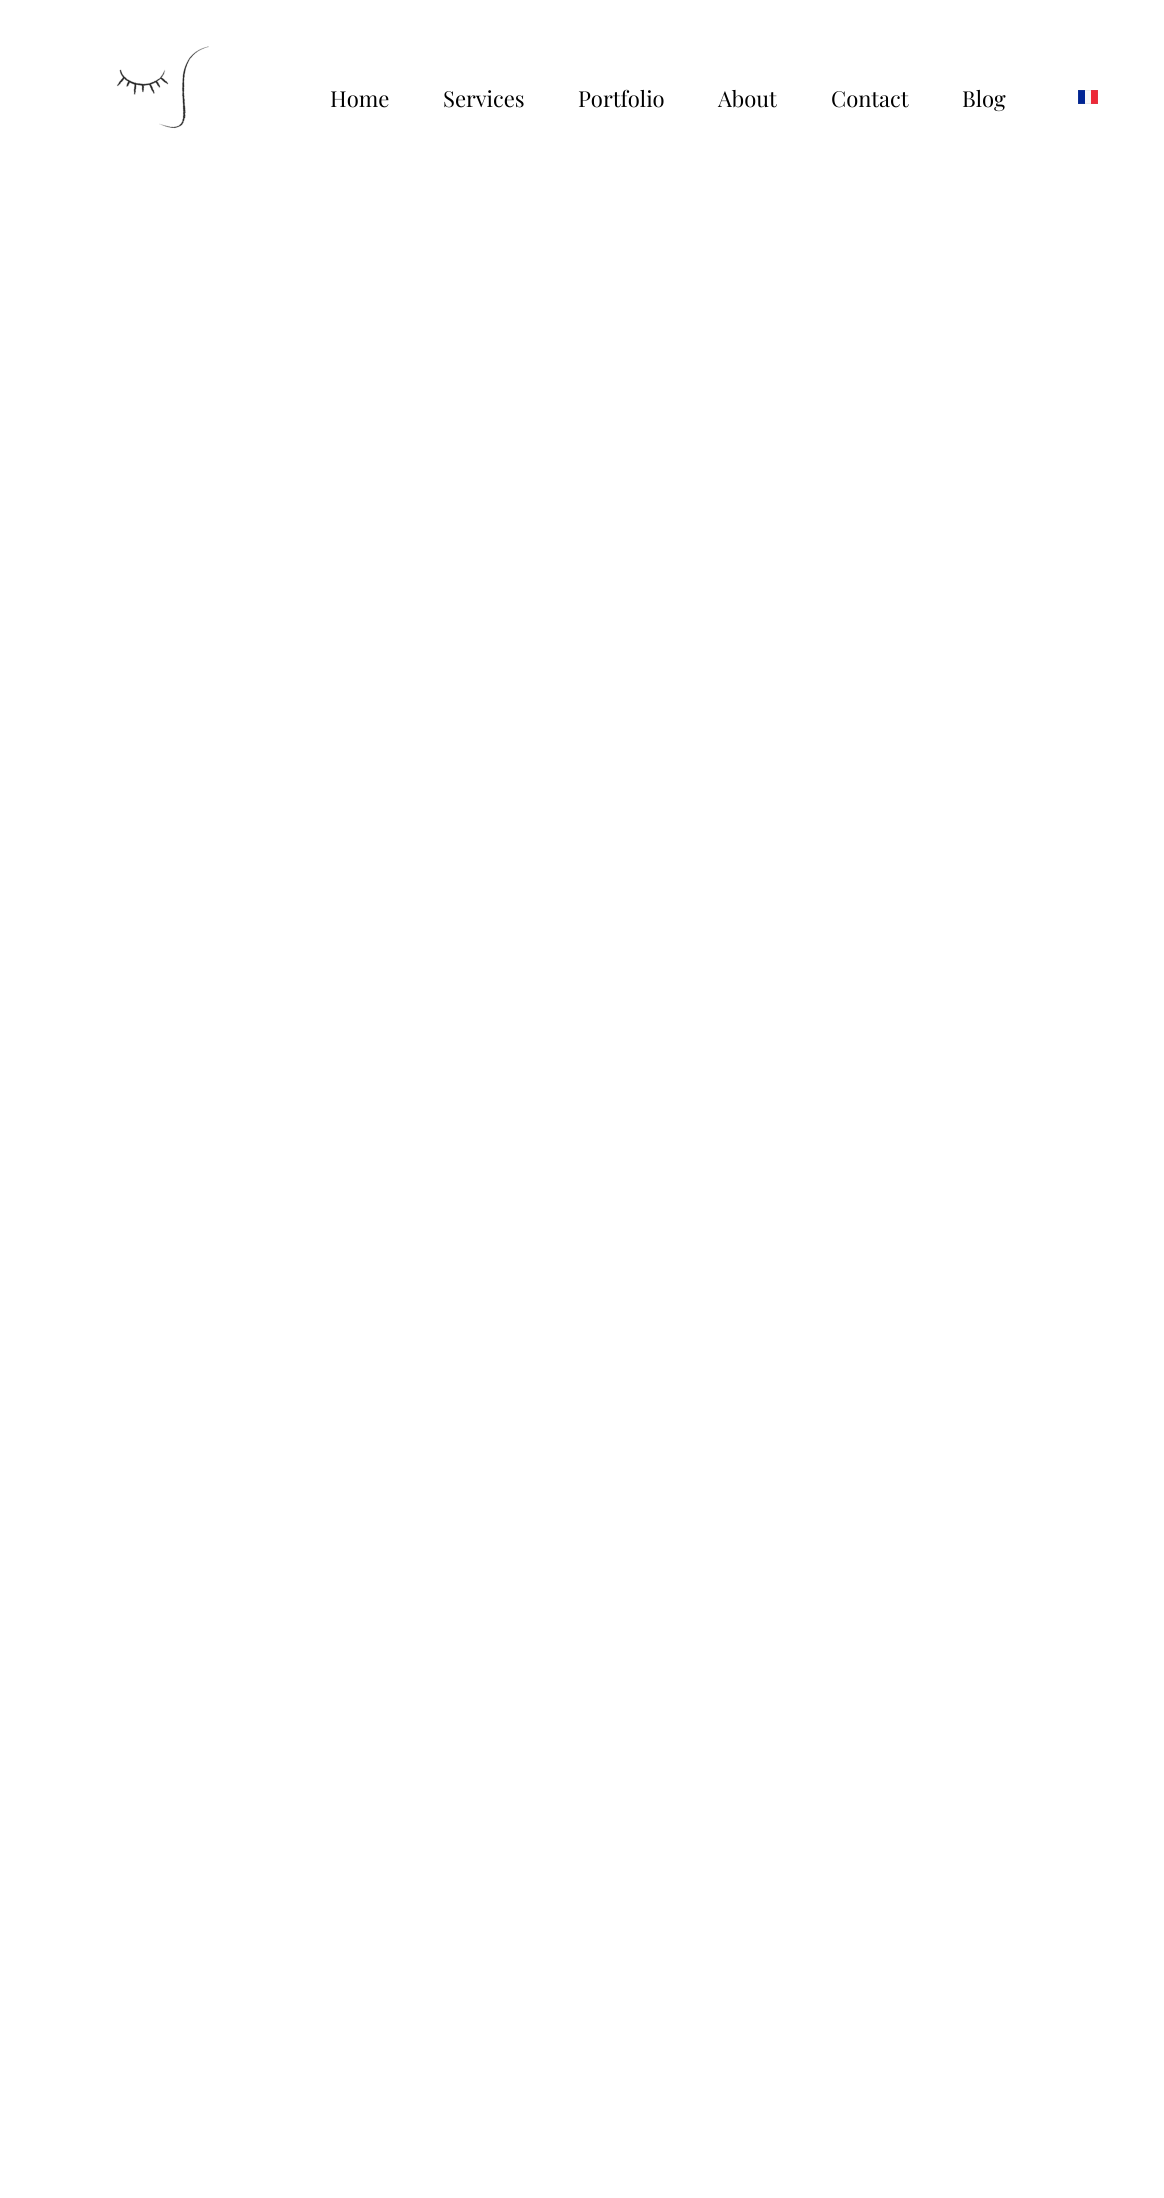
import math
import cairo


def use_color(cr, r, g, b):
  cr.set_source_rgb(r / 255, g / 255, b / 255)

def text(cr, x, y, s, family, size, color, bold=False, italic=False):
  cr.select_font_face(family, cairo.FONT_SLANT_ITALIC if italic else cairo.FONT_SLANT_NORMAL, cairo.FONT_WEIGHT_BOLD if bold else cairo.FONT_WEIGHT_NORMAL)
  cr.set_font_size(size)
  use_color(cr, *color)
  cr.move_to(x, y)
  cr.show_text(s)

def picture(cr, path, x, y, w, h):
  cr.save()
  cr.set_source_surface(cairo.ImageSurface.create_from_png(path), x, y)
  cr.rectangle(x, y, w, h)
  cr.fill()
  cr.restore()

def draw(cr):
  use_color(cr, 255, 255, 255)
  cr.paint()
  picture(cr, "img_01.png", 116, 46, 93, 83)
  picture(cr, "img_02.png", 1078, 90, 20, 14)
  picture(cr, "img_03.png", 0, 195, 1164, 2003)
  picture(cr, "img_04.png", 525, 1577, 11, 11)
  picture(cr, "img_05.png", 1117, 2002, 14, 14)
  text(cr, 330, 107, "Home", "Playfair Display", 22, (0, 0, 0))
  text(cr, 443, 107, "Services", "Playfair Display", 22, (0, 0, 0))
  text(cr, 578, 107, "Portfolio", "Playfair Display", 22, (0, 0, 0))
  text(cr, 718, 107, "About", "Playfair Display", 22, (0, 0, 0))
  text(cr, 831, 107, "Contact", "Playfair Display", 22, (0, 0, 0))
  text(cr, 962, 107, "Blog", "Playfair Display", 22, (0, 0, 0))


surface = cairo.ImageSurface(cairo.FORMAT_RGB24, 1164, 2198)
cr = cairo.Context(surface)
options = cairo.FontOptions()
options.set_hint_metrics(cairo.HINT_METRICS_OFF)
options.set_hint_style(cairo.HINT_STYLE_NONE)
cr.set_font_options(options)
cr.set_miter_limit(4)
draw(cr)
surface.write_to_png("out.png")
